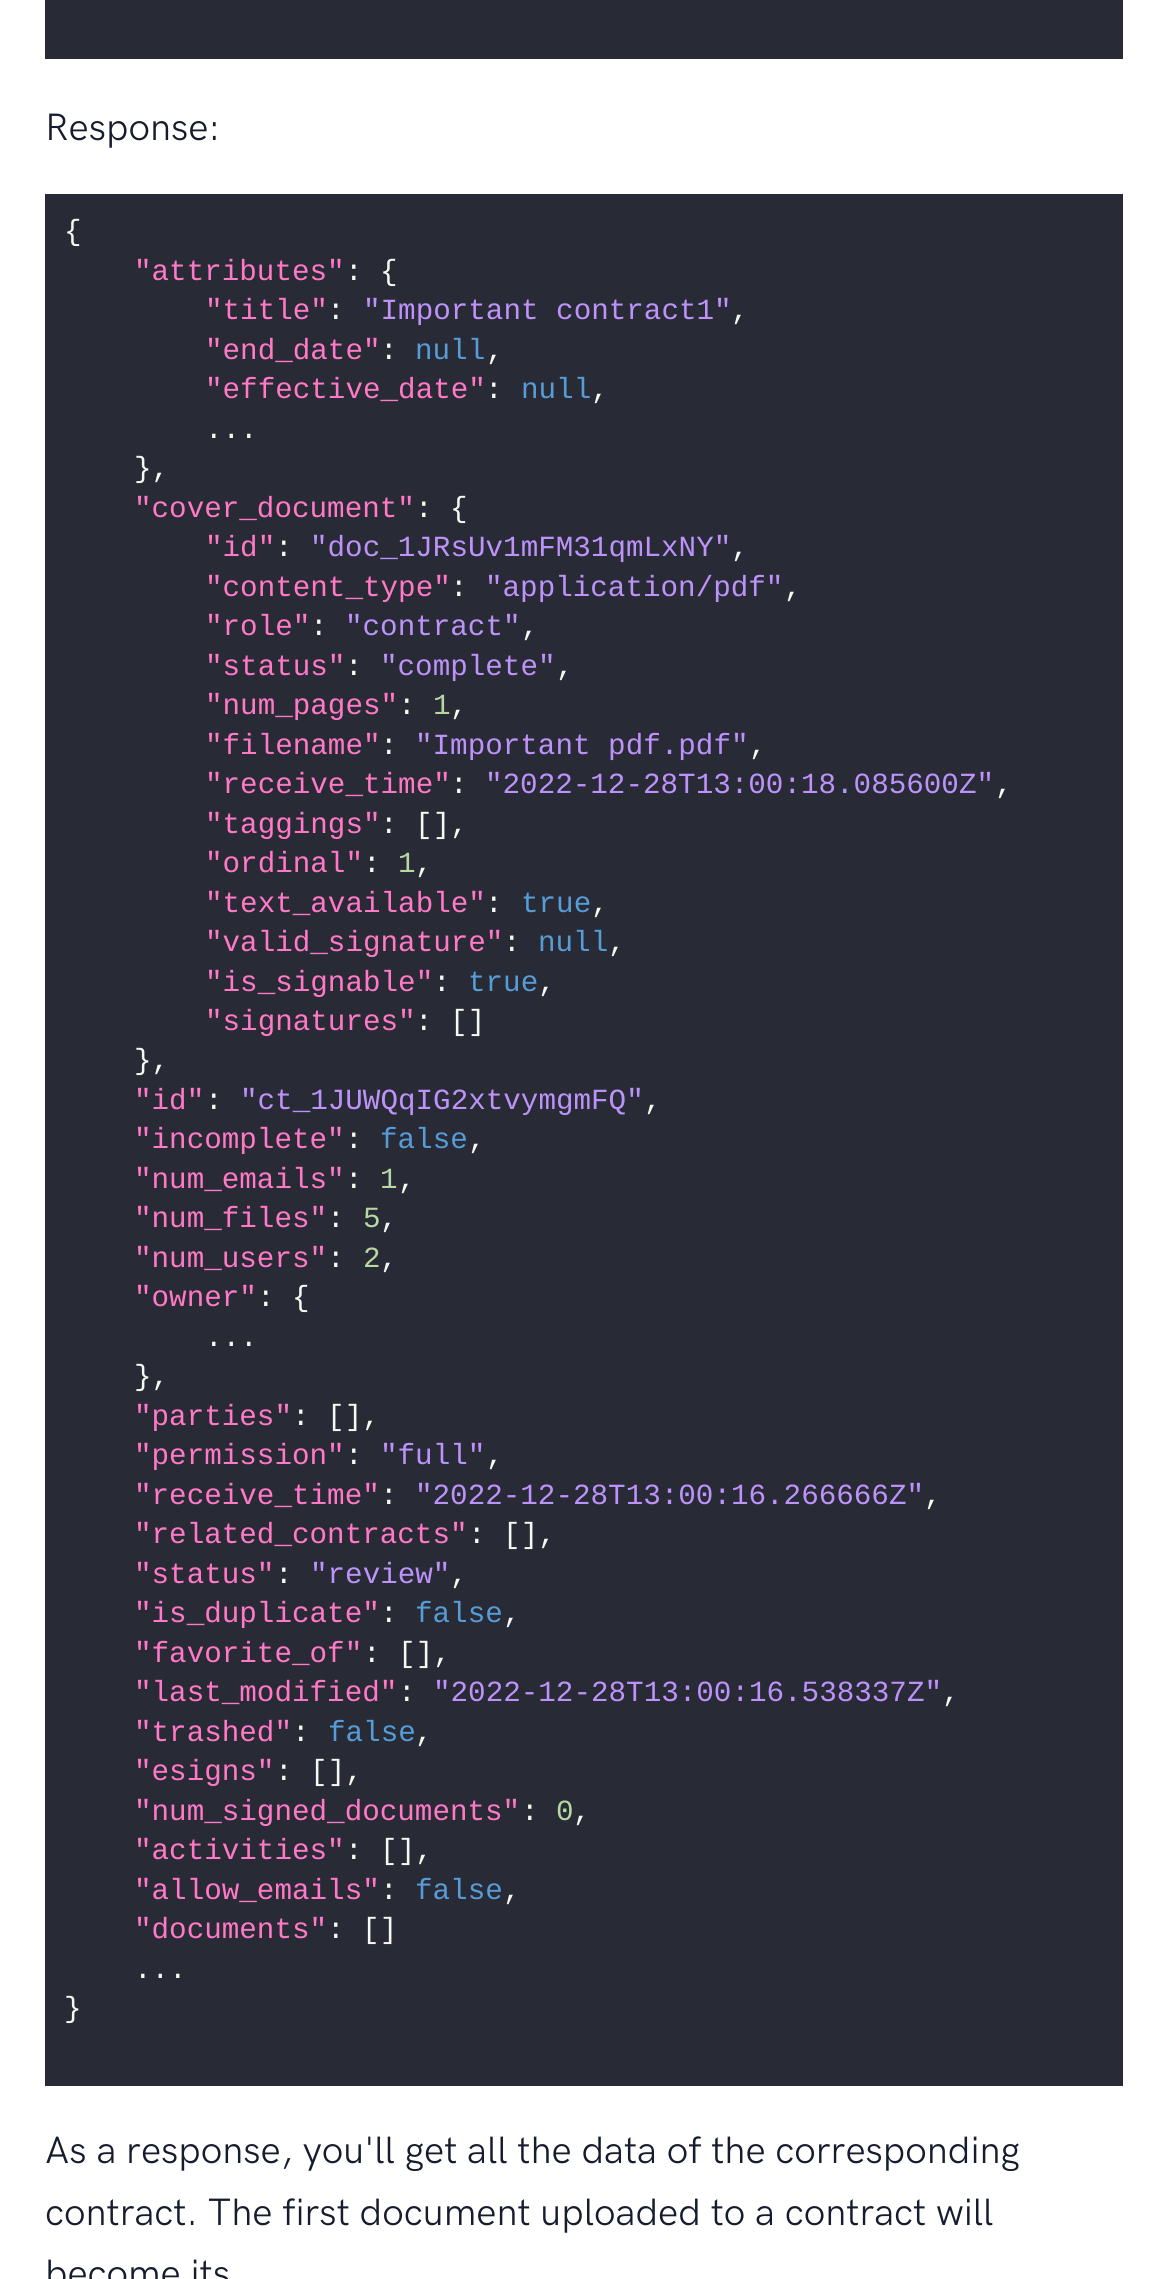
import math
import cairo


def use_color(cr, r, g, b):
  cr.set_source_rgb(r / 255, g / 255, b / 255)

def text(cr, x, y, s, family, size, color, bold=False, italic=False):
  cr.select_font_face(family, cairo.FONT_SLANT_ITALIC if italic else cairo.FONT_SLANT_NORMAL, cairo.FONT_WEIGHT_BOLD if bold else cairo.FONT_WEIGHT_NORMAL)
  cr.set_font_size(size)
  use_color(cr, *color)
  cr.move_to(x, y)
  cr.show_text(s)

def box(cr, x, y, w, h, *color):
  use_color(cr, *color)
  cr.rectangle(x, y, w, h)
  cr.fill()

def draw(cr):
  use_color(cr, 255, 255, 255)
  cr.paint()
  box(cr, 45, 0, 1078, 59, 40, 42, 54)
  box(cr, 45, 194, 1078, 1892, 40, 42, 54)
  text(cr, 45, 140, "Response:", "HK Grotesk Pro", 38.25, (22, 28, 45))
  text(cr, 64, 240, "{", "Liberation Mono", 29.25, (248, 248, 242))
  text(cr, 134, 280, "\"attributes\"", "Liberation Mono", 29.25, (255, 121, 198))
  text(cr, 345, 280, ": {", "Liberation Mono", 29.25, (248, 248, 242))
  text(cr, 205, 319, "\"title\"", "Liberation Mono", 29.25, (255, 121, 198))
  text(cr, 327, 319, ":", "Liberation Mono", 29.25, (248, 248, 242))
  text(cr, 363, 319, "\"Important contract1\"", "Liberation Mono", 29.25, (189, 147, 249))
  text(cr, 731, 319, ",", "Liberation Mono", 29.25, (248, 248, 242))
  text(cr, 205, 359, "\"end_date\"", "Liberation Mono", 29.25, (255, 121, 198))
  text(cr, 380, 359, ":", "Liberation Mono", 29.25, (248, 248, 242))
  text(cr, 415, 359, "null", "Liberation Mono", 29.25, (86, 156, 214))
  text(cr, 486, 359, ",", "Liberation Mono", 29.25, (248, 248, 242))
  text(cr, 205, 398, "\"effective_date\"", "Liberation Mono", 29.25, (255, 121, 198))
  text(cr, 485, 398, ":", "Liberation Mono", 29.25, (248, 248, 242))
  text(cr, 521, 398, "null", "Liberation Mono", 29.25, (86, 156, 214))
  text(cr, 591, 398, ",", "Liberation Mono", 29.25, (248, 248, 242))
  text(cr, 205, 438, "...", "Liberation Mono", 29.25, (248, 248, 242))
  text(cr, 134, 477, "},", "Liberation Mono", 29.25, (248, 248, 242))
  text(cr, 134, 517, "\"cover_document\"", "Liberation Mono", 29.25, (255, 121, 198))
  text(cr, 415, 517, ": {", "Liberation Mono", 29.25, (248, 248, 242))
  text(cr, 205, 556, "\"id\"", "Liberation Mono", 29.25, (255, 121, 198))
  text(cr, 275, 556, ":", "Liberation Mono", 29.25, (248, 248, 242))
  text(cr, 310, 556, "\"doc_1JRsUv1mFM31qmLxNY\"", "Liberation Mono", 29.25, (189, 147, 249))
  text(cr, 731, 556, ",", "Liberation Mono", 29.25, (248, 248, 242))
  text(cr, 205, 596, "\"content_type\"", "Liberation Mono", 29.25, (255, 121, 198))
  text(cr, 450, 596, ":", "Liberation Mono", 29.25, (248, 248, 242))
  text(cr, 485, 596, "\"application/pdf\"", "Liberation Mono", 29.25, (189, 147, 249))
  text(cr, 784, 596, ",", "Liberation Mono", 29.25, (248, 248, 242))
  text(cr, 205, 635, "\"role\"", "Liberation Mono", 29.25, (255, 121, 198))
  text(cr, 310, 635, ":", "Liberation Mono", 29.25, (248, 248, 242))
  text(cr, 345, 635, "\"contract\"", "Liberation Mono", 29.25, (189, 147, 249))
  text(cr, 521, 635, ",", "Liberation Mono", 29.25, (248, 248, 242))
  text(cr, 205, 675, "\"status\"", "Liberation Mono", 29.25, (255, 121, 198))
  text(cr, 345, 675, ":", "Liberation Mono", 29.25, (248, 248, 242))
  text(cr, 380, 675, "\"complete\"", "Liberation Mono", 29.25, (189, 147, 249))
  text(cr, 556, 675, ",", "Liberation Mono", 29.25, (248, 248, 242))
  text(cr, 205, 714, "\"num_pages\"", "Liberation Mono", 29.25, (255, 121, 198))
  text(cr, 398, 714, ":", "Liberation Mono", 29.25, (248, 248, 242))
  text(cr, 433, 714, "1", "Liberation Mono", 29.25, (184, 215, 163))
  text(cr, 450, 714, ",", "Liberation Mono", 29.25, (248, 248, 242))
  text(cr, 205, 754, "\"filename\"", "Liberation Mono", 29.25, (255, 121, 198))
  text(cr, 380, 754, ":", "Liberation Mono", 29.25, (248, 248, 242))
  text(cr, 415, 754, "\"Important pdf.pdf\"", "Liberation Mono", 29.25, (189, 147, 249))
  text(cr, 749, 754, ",", "Liberation Mono", 29.25, (248, 248, 242))
  text(cr, 205, 793, "\"receive_time\"", "Liberation Mono", 29.25, (255, 121, 198))
  text(cr, 450, 793, ":", "Liberation Mono", 29.25, (248, 248, 242))
  text(cr, 485, 793, "\"2022-12-28T13:00:18.085600Z\"", "Liberation Mono", 29.25, (189, 147, 249))
  text(cr, 995, 793, ",", "Liberation Mono", 29.25, (248, 248, 242))
  text(cr, 205, 833, "\"taggings\"", "Liberation Mono", 29.25, (255, 121, 198))
  text(cr, 380, 833, ": [],", "Liberation Mono", 29.25, (248, 248, 242))
  text(cr, 205, 872, "\"ordinal\"", "Liberation Mono", 29.25, (255, 121, 198))
  text(cr, 363, 872, ":", "Liberation Mono", 29.25, (248, 248, 242))
  text(cr, 398, 872, "1", "Liberation Mono", 29.25, (184, 215, 163))
  text(cr, 415, 872, ",", "Liberation Mono", 29.25, (248, 248, 242))
  text(cr, 205, 912, "\"text_available\"", "Liberation Mono", 29.25, (255, 121, 198))
  text(cr, 485, 912, ":", "Liberation Mono", 29.25, (248, 248, 242))
  text(cr, 521, 912, "true", "Liberation Mono", 29.25, (86, 156, 214))
  text(cr, 591, 912, ",", "Liberation Mono", 29.25, (248, 248, 242))
  text(cr, 205, 951, "\"valid_signature\"", "Liberation Mono", 29.25, (255, 121, 198))
  text(cr, 503, 951, ":", "Liberation Mono", 29.25, (248, 248, 242))
  text(cr, 538, 951, "null", "Liberation Mono", 29.25, (86, 156, 214))
  text(cr, 608, 951, ",", "Liberation Mono", 29.25, (248, 248, 242))
  text(cr, 205, 991, "\"is_signable\"", "Liberation Mono", 29.25, (255, 121, 198))
  text(cr, 433, 991, ":", "Liberation Mono", 29.25, (248, 248, 242))
  text(cr, 468, 991, "true", "Liberation Mono", 29.25, (86, 156, 214))
  text(cr, 538, 991, ",", "Liberation Mono", 29.25, (248, 248, 242))
  text(cr, 205, 1030, "\"signatures\"", "Liberation Mono", 29.25, (255, 121, 198))
  text(cr, 415, 1030, ": []", "Liberation Mono", 29.25, (248, 248, 242))
  text(cr, 134, 1069, "},", "Liberation Mono", 29.25, (248, 248, 242))
  text(cr, 134, 1109, "\"id\"", "Liberation Mono", 29.25, (255, 121, 198))
  text(cr, 205, 1109, ":", "Liberation Mono", 29.25, (248, 248, 242))
  text(cr, 240, 1109, "\"ct_1JUWQqIG2xtvymgmFQ\"", "Liberation Mono", 29.25, (189, 147, 249))
  text(cr, 644, 1109, ",", "Liberation Mono", 29.25, (248, 248, 242))
  text(cr, 134, 1148, "\"incomplete\"", "Liberation Mono", 29.25, (255, 121, 198))
  text(cr, 345, 1148, ":", "Liberation Mono", 29.25, (248, 248, 242))
  text(cr, 380, 1148, "false", "Liberation Mono", 29.25, (86, 156, 214))
  text(cr, 468, 1148, ",", "Liberation Mono", 29.25, (248, 248, 242))
  text(cr, 134, 1188, "\"num_emails\"", "Liberation Mono", 29.25, (255, 121, 198))
  text(cr, 345, 1188, ":", "Liberation Mono", 29.25, (248, 248, 242))
  text(cr, 380, 1188, "1", "Liberation Mono", 29.25, (184, 215, 163))
  text(cr, 398, 1188, ",", "Liberation Mono", 29.25, (248, 248, 242))
  text(cr, 134, 1227, "\"num_files\"", "Liberation Mono", 29.25, (255, 121, 198))
  text(cr, 327, 1227, ":", "Liberation Mono", 29.25, (248, 248, 242))
  text(cr, 363, 1227, "5", "Liberation Mono", 29.25, (184, 215, 163))
  text(cr, 380, 1227, ",", "Liberation Mono", 29.25, (248, 248, 242))
  text(cr, 134, 1267, "\"num_users\"", "Liberation Mono", 29.25, (255, 121, 198))
  text(cr, 327, 1267, ":", "Liberation Mono", 29.25, (248, 248, 242))
  text(cr, 363, 1267, "2", "Liberation Mono", 29.25, (184, 215, 163))
  text(cr, 380, 1267, ",", "Liberation Mono", 29.25, (248, 248, 242))
  text(cr, 134, 1306, "\"owner\"", "Liberation Mono", 29.25, (255, 121, 198))
  text(cr, 257, 1306, ": {", "Liberation Mono", 29.25, (248, 248, 242))
  text(cr, 205, 1346, "...", "Liberation Mono", 29.25, (248, 248, 242))
  text(cr, 134, 1385, "},", "Liberation Mono", 29.25, (248, 248, 242))
  text(cr, 134, 1425, "\"parties\"", "Liberation Mono", 29.25, (255, 121, 198))
  text(cr, 292, 1425, ": [],", "Liberation Mono", 29.25, (248, 248, 242))
  text(cr, 134, 1464, "\"permission\"", "Liberation Mono", 29.25, (255, 121, 198))
  text(cr, 345, 1464, ":", "Liberation Mono", 29.25, (248, 248, 242))
  text(cr, 380, 1464, "\"full\"", "Liberation Mono", 29.25, (189, 147, 249))
  text(cr, 486, 1464, ",", "Liberation Mono", 29.25, (248, 248, 242))
  text(cr, 134, 1504, "\"receive_time\"", "Liberation Mono", 29.25, (255, 121, 198))
  text(cr, 380, 1504, ":", "Liberation Mono", 29.25, (248, 248, 242))
  text(cr, 415, 1504, "\"2022-12-28T13:00:16.266666Z\"", "Liberation Mono", 29.25, (189, 147, 249))
  text(cr, 924, 1504, ",", "Liberation Mono", 29.25, (248, 248, 242))
  text(cr, 134, 1543, "\"related_contracts\"", "Liberation Mono", 29.25, (255, 121, 198))
  text(cr, 468, 1543, ": [],", "Liberation Mono", 29.25, (248, 248, 242))
  text(cr, 134, 1583, "\"status\"", "Liberation Mono", 29.25, (255, 121, 198))
  text(cr, 275, 1583, ":", "Liberation Mono", 29.25, (248, 248, 242))
  text(cr, 310, 1583, "\"review\"", "Liberation Mono", 29.25, (189, 147, 249))
  text(cr, 450, 1583, ",", "Liberation Mono", 29.25, (248, 248, 242))
  text(cr, 134, 1622, "\"is_duplicate\"", "Liberation Mono", 29.25, (255, 121, 198))
  text(cr, 380, 1622, ":", "Liberation Mono", 29.25, (248, 248, 242))
  text(cr, 415, 1622, "false", "Liberation Mono", 29.25, (86, 156, 214))
  text(cr, 503, 1622, ",", "Liberation Mono", 29.25, (248, 248, 242))
  text(cr, 134, 1662, "\"favorite_of\"", "Liberation Mono", 29.25, (255, 121, 198))
  text(cr, 363, 1662, ": [],", "Liberation Mono", 29.25, (248, 248, 242))
  text(cr, 134, 1701, "\"last_modified\"", "Liberation Mono", 29.25, (255, 121, 198))
  text(cr, 398, 1701, ":", "Liberation Mono", 29.25, (248, 248, 242))
  text(cr, 433, 1701, "\"2022-12-28T13:00:16.538337Z\"", "Liberation Mono", 29.25, (189, 147, 249))
  text(cr, 942, 1701, ",", "Liberation Mono", 29.25, (248, 248, 242))
  text(cr, 134, 1741, "\"trashed\"", "Liberation Mono", 29.25, (255, 121, 198))
  text(cr, 292, 1741, ":", "Liberation Mono", 29.25, (248, 248, 242))
  text(cr, 328, 1741, "false", "Liberation Mono", 29.25, (86, 156, 214))
  text(cr, 415, 1741, ",", "Liberation Mono", 29.25, (248, 248, 242))
  text(cr, 134, 1780, "\"esigns\"", "Liberation Mono", 29.25, (255, 121, 198))
  text(cr, 275, 1780, ": [],", "Liberation Mono", 29.25, (248, 248, 242))
  text(cr, 134, 1820, "\"num_signed_documents\"", "Liberation Mono", 29.25, (255, 121, 198))
  text(cr, 521, 1820, ":", "Liberation Mono", 29.25, (248, 248, 242))
  text(cr, 556, 1820, "0", "Liberation Mono", 29.25, (184, 215, 163))
  text(cr, 573, 1820, ",", "Liberation Mono", 29.25, (248, 248, 242))
  text(cr, 134, 1859, "\"activities\"", "Liberation Mono", 29.25, (255, 121, 198))
  text(cr, 345, 1859, ": [],", "Liberation Mono", 29.25, (248, 248, 242))
  text(cr, 134, 1899, "\"allow_emails\"", "Liberation Mono", 29.25, (255, 121, 198))
  text(cr, 380, 1899, ":", "Liberation Mono", 29.25, (248, 248, 242))
  text(cr, 415, 1899, "false", "Liberation Mono", 29.25, (86, 156, 214))
  text(cr, 503, 1899, ",", "Liberation Mono", 29.25, (248, 248, 242))
  text(cr, 134, 1938, "\"documents\"", "Liberation Mono", 29.25, (255, 121, 198))
  text(cr, 327, 1938, ": []", "Liberation Mono", 29.25, (248, 248, 242))
  text(cr, 134, 1978, "...", "Liberation Mono", 29.25, (248, 248, 242))
  text(cr, 64, 2017, "}", "Liberation Mono", 29.25, (248, 248, 242))
  text(cr, 45, 2163, "As a response, you'll get all the data of the corresponding", "HK Grotesk Pro", 38.25, (22, 28, 45))
  text(cr, 45, 2225, "contract. The first document uploaded to a contract will", "HK Grotesk Pro", 38.25, (22, 28, 45))
  text(cr, 45, 2286, "become its", "HK Grotesk Pro", 38.25, (22, 28, 45))


surface = cairo.ImageSurface(cairo.FORMAT_RGB24, 1166, 2279)
cr = cairo.Context(surface)
options = cairo.FontOptions()
options.set_hint_metrics(cairo.HINT_METRICS_OFF)
options.set_hint_style(cairo.HINT_STYLE_NONE)
cr.set_font_options(options)
cr.set_miter_limit(4)
draw(cr)
surface.write_to_png("out.png")
